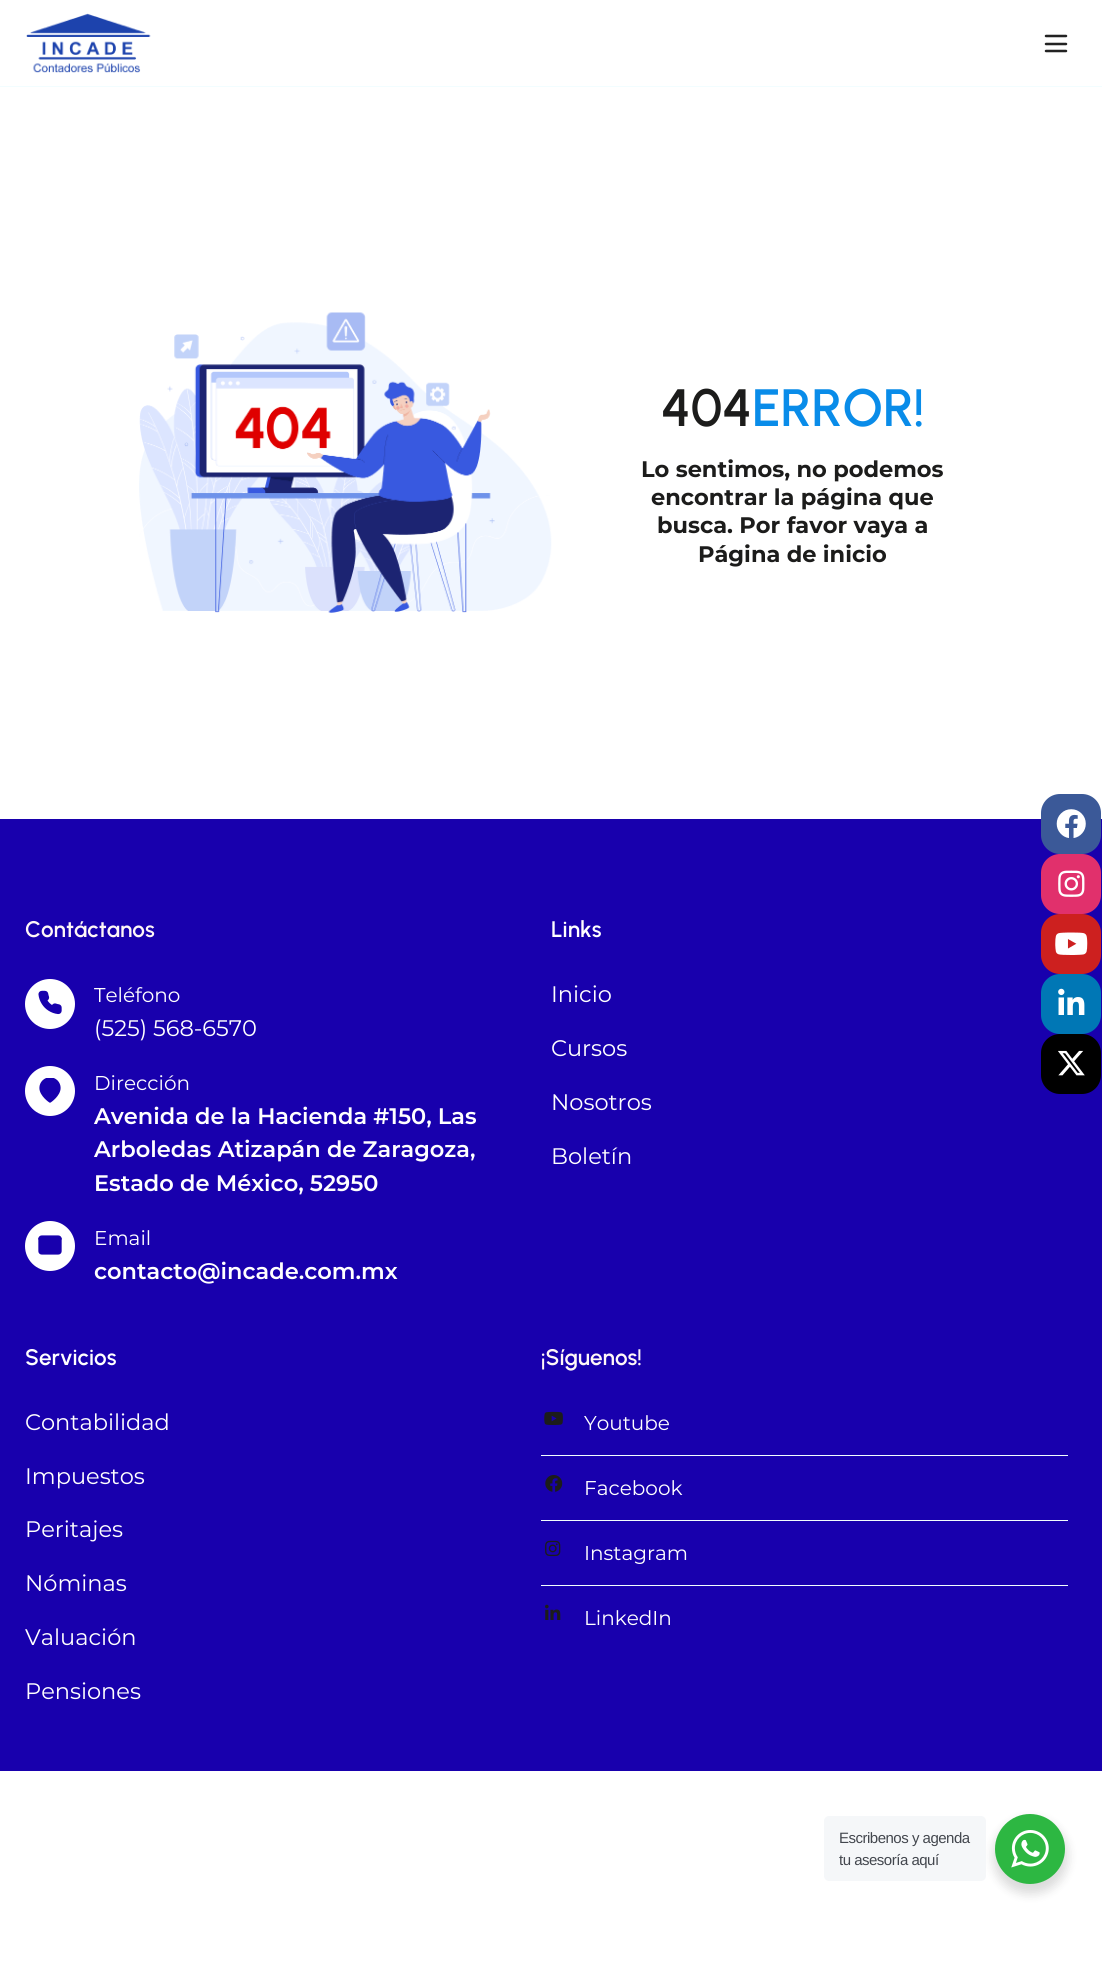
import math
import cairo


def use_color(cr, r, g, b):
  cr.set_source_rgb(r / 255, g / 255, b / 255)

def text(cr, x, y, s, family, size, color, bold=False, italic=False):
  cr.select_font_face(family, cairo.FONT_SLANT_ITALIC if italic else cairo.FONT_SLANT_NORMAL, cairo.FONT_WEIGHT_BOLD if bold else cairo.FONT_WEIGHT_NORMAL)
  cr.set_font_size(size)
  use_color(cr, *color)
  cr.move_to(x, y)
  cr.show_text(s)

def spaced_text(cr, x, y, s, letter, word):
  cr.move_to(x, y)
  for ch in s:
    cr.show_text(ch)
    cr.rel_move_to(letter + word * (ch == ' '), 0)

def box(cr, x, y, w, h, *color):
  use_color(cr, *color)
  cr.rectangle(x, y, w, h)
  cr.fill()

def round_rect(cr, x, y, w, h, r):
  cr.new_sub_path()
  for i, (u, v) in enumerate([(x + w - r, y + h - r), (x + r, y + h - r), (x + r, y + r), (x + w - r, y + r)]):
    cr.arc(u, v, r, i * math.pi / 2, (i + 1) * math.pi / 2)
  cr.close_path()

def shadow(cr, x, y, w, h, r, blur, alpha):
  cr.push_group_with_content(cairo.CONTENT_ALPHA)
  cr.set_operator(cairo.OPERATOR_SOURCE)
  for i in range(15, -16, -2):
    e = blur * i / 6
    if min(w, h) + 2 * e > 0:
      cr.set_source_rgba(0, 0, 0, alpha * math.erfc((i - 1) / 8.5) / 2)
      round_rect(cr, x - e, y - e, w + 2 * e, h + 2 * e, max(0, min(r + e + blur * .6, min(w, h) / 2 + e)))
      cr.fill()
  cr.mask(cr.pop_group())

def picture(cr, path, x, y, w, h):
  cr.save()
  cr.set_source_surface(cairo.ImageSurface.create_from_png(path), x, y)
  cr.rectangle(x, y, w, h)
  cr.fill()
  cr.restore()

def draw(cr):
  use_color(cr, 255, 255, 255)
  cr.paint()
  box(cr, 0, 86, 1102, 1, 242, 253, 255)
  picture(cr, "img_01.png", 26, 13, 125, 60)
  cr.new_path()
  cr.move_to(1046, 36)
  cr.line_to(1066, 36)
  cr.move_to(1046, 44)
  cr.line_to(1066, 44)
  cr.move_to(1046, 51)
  cr.line_to(1066, 51)
  use_color(cr, 34, 34, 34)
  cr.set_line_width(2.5)
  cr.set_line_cap(cairo.LINE_CAP_ROUND)
  cr.set_line_join(cairo.LINE_JOIN_ROUND)
  cr.stroke()
  picture(cr, "img_02.png", 139, 312, 413, 301)
  box(cr, 0, 819, 1102, 952, 24, 0, 173)
  use_color(cr, 255, 255, 255)
  cr.arc(50, 1004, 25, 0, 2 * math.pi)
  cr.fill()
  picture(cr, "img_03.png", 38, 990, 24, 25)
  cr.arc(50, 1091, 25, 0, 2 * math.pi)
  cr.fill()
  picture(cr, "img_04.png", 39, 1078, 22, 25)
  cr.arc(50, 1246, 25, 0, 2 * math.pi)
  cr.fill()
  picture(cr, "img_05.png", 38, 1235, 24, 20)
  box(cr, 541, 1455, 527, 1, 242, 253, 255)
  picture(cr, "img_06.png", 544, 1411, 19, 14)
  box(cr, 541, 1520, 527, 1, 242, 253, 255)
  picture(cr, "img_07.png", 545, 1475, 18, 17)
  box(cr, 541, 1585, 527, 1, 242, 253, 255)
  picture(cr, "img_08.png", 545, 1540, 16, 17)
  picture(cr, "img_09.png", 545, 1604, 16, 16)
  use_color(cr, 59, 89, 152)
  round_rect(cr, 1041, 794, 60, 60, 19)
  cr.fill()
  picture(cr, "img_10.png", 1056, 809, 30, 29)
  use_color(cr, 225, 48, 108)
  round_rect(cr, 1041, 854, 60, 60, 19)
  cr.fill()
  picture(cr, "img_11.png", 1058, 870, 27, 27)
  use_color(cr, 205, 32, 31)
  round_rect(cr, 1041, 914, 60, 60, 19)
  cr.fill()
  picture(cr, "img_12.png", 1055, 932, 33, 23)
  use_color(cr, 0, 119, 181)
  round_rect(cr, 1041, 974, 60, 60, 19)
  cr.fill()
  picture(cr, "img_13.png", 1058, 988, 27, 27)
  use_color(cr, 0, 0, 0)
  round_rect(cr, 1041, 1034, 60, 60, 19)
  cr.fill()
  picture(cr, "img_14.png", 1058, 1050, 27, 26)
  use_color(cr, 0, 0, 0)
  shadow(cr, 993, 1819, 75, 75, 37.5, 5, 0.14)
  use_color(cr, 245, 247, 249)
  round_rect(cr, 824, 1816, 162, 65, 5)
  cr.fill()
  use_color(cr, 45, 183, 66)
  cr.arc(1030, 1849, 35, 0, 2 * math.pi)
  cr.fill()
  picture(cr, "img_15.png", 1011, 1830, 38, 38)
  text(cr, 661, 426, "404", "Urbanist SemiBold", 52.5, (28, 28, 27))
  text(cr, 752, 426, "ERROR!", "Urbanist SemiBold", 52.5, (9, 140, 233))
  text(cr, 641, 477, "Lo sentimos, no podemos", "Montserrat", 22.5, (28, 28, 27), bold=True)
  text(cr, 651, 505, "encontrar la página que", "Montserrat", 22.5, (28, 28, 27), bold=True)
  text(cr, 657, 533, "busca. Por favor vaya a", "Montserrat", 22.5, (28, 28, 27), bold=True)
  text(cr, 698, 562, "Página de inicio", "Montserrat", 22.5, (28, 28, 27), bold=True)
  text(cr, 25, 937, "Contáctanos", "Urbanist SemiBold", 22.5, (255, 247, 247))
  text(cr, 94, 1002, "Teléfono", "Montserrat", 20, (255, 255, 255))
  text(cr, 94, 1036, "(525) 568-6570", "Montserrat", 22.5, (255, 255, 255))
  text(cr, 94, 1090, "Dirección", "Montserrat", 20, (255, 255, 255))
  text(cr, 94, 1124, "Avenida de la Hacienda #150, Las", "Montserrat SemiBold", 22.5, (255, 255, 255))
  text(cr, 94, 1157, "Arboledas Atizapán de Zaragoza,", "Montserrat SemiBold", 22.5, (255, 255, 255))
  text(cr, 94, 1191, "Estado de México, 52950", "Montserrat SemiBold", 22.5, (255, 255, 255))
  text(cr, 94, 1245, "Email", "Montserrat", 20, (255, 255, 255))
  text(cr, 94, 1279, "contacto@incade.com.mx", "Montserrat SemiBold", 22.5, (255, 255, 255))
  text(cr, 551, 937, "Links", "Urbanist SemiBold", 22.5, (255, 255, 255))
  text(cr, 551, 1002, "Inicio", "Montserrat", 22.5, (255, 255, 255))
  text(cr, 551, 1056, "Cursos", "Montserrat", 22.5, (255, 255, 255))
  text(cr, 551, 1110, "Nosotros", "Montserrat", 22.5, (255, 255, 255))
  text(cr, 551, 1164, "Boletín", "Montserrat", 22.5, (255, 255, 255))
  text(cr, 25, 1365, "Servicios", "Urbanist SemiBold", 22.5, (255, 255, 255))
  text(cr, 25, 1430, "Contabilidad", "Montserrat", 22.5, (255, 255, 255))
  text(cr, 25, 1484, "Impuestos", "Montserrat", 22.5, (255, 255, 255))
  text(cr, 25, 1537, "Peritajes", "Montserrat", 22.5, (255, 255, 255))
  text(cr, 25, 1591, "Nóminas", "Montserrat", 22.5, (255, 255, 255))
  text(cr, 25, 1645, "Valuación", "Montserrat", 22.5, (255, 255, 255))
  text(cr, 25, 1699, "Pensiones", "Montserrat", 22.5, (255, 255, 255))
  text(cr, 541, 1365, "¡Síguenos!", "Urbanist SemiBold", 22.5, (255, 247, 247))
  text(cr, 584, 1430, "Youtube", "Montserrat", 20, (255, 255, 255))
  text(cr, 584, 1495, "Facebook", "Montserrat", 20, (255, 255, 255))
  text(cr, 584, 1560, "Instagram", "Montserrat", 20, (255, 255, 255))
  text(cr, 584, 1625, "LinkedIn", "Montserrat", 20, (255, 255, 255))
  cr.select_font_face("Liberation Sans")
  cr.set_font_size(15)
  use_color(cr, 67, 71, 78)
  spaced_text(cr, 839, 1843, "Escribenos y agenda", -0.5, 0)
  spaced_text(cr, 839, 1865, "tu asesoría aquí", -0.5, 0)


surface = cairo.ImageSurface(cairo.FORMAT_RGB24, 1102, 1983)
cr = cairo.Context(surface)
options = cairo.FontOptions()
options.set_hint_metrics(cairo.HINT_METRICS_OFF)
options.set_hint_style(cairo.HINT_STYLE_NONE)
cr.set_font_options(options)
cr.set_miter_limit(4)
draw(cr)
surface.write_to_png("out.png")
